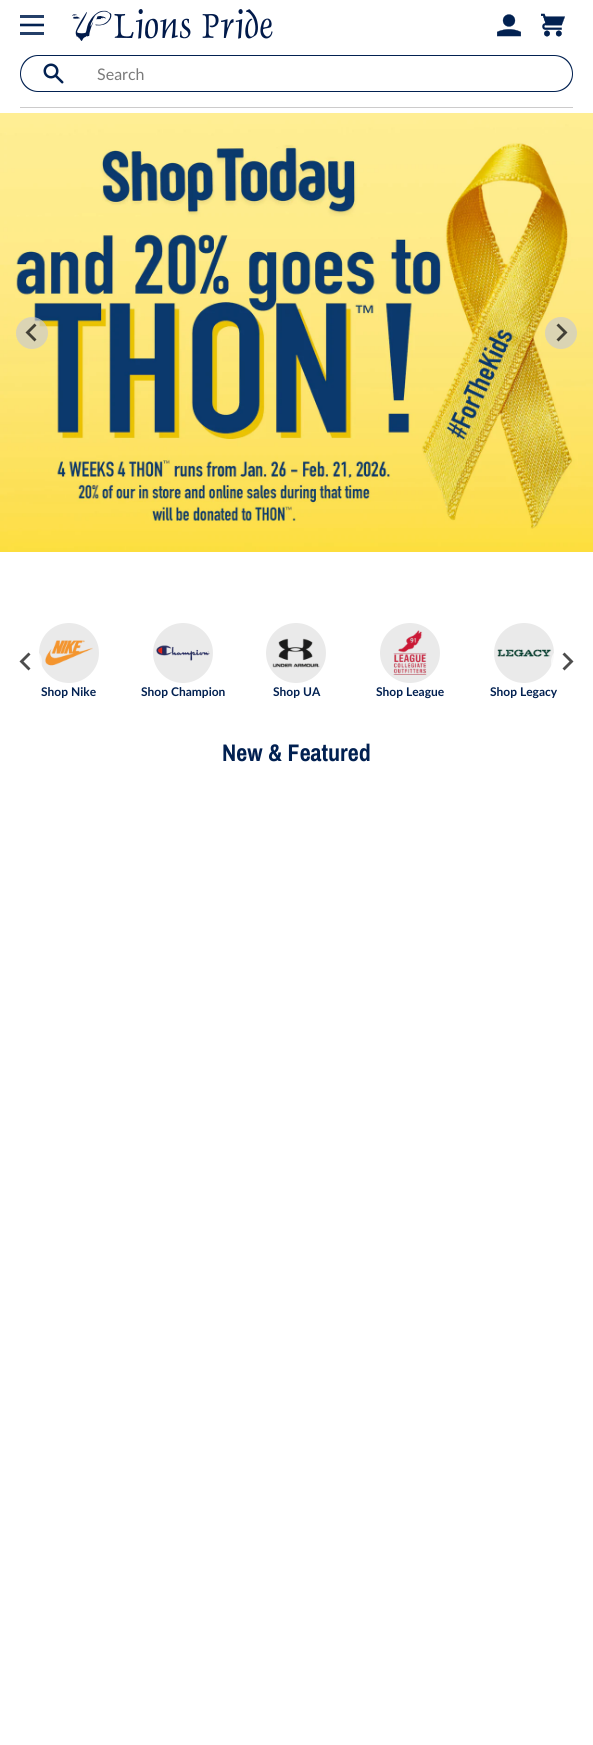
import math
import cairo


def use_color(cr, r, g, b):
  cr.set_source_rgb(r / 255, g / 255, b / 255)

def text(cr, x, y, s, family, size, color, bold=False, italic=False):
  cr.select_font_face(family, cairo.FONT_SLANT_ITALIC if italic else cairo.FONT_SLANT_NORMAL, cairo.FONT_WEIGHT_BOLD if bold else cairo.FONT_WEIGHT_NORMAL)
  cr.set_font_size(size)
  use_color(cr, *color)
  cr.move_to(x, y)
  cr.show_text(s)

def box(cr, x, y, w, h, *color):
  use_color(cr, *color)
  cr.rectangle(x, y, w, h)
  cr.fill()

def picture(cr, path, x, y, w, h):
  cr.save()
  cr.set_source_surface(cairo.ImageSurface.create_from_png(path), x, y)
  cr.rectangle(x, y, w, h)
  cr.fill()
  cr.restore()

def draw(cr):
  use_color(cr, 255, 255, 255)
  cr.paint()
  box(cr, 20, 107, 553, 1, 204, 203, 203)
  box(cr, 20, 15, 24, 3, 36, 63, 104)
  cr.new_path()
  cr.move_to(20, 25)
  cr.line_to(44, 25)
  use_color(cr, 2, 33, 81)
  cr.set_line_width(2.6)
  cr.stroke()
  box(cr, 20, 32, 24, 3, 36, 63, 104)
  picture(cr, "img_01.png", 72, 9, 201, 32)
  picture(cr, "img_02.png", 497, 14, 24, 23)
  picture(cr, "img_03.png", 541, 13, 24, 24)
  use_color(cr, 2, 33, 81)
  cr.set_fill_rule(cairo.FILL_RULE_EVEN_ODD)
  cr.new_path()
  cr.move_to(38, 55)
  cr.line_to(86, 55)
  cr.line_to(86, 92)
  cr.line_to(38, 92)
  cr.curve_to(28, 92, 20, 84, 20, 74)
  cr.curve_to(20, 63, 28, 55, 38, 55)
  cr.close_path()
  cr.move_to(38, 56)
  cr.line_to(86, 56)
  cr.line_to(86, 91)
  cr.line_to(38, 91)
  cr.curve_to(29, 91, 21, 83, 21, 74)
  cr.curve_to(21, 64, 29, 56, 38, 56)
  cr.close_path()
  cr.fill()
  picture(cr, "img_04.png", 43, 63, 21, 21)
  use_color(cr, 255, 255, 255)
  cr.new_path()
  cr.move_to(85, 55)
  cr.line_to(554.5, 55)
  cr.curve_to(564.5, 55, 573, 63.5, 573, 73.5)
  cr.curve_to(573, 83.5, 564.5, 92, 554.5, 92)
  cr.line_to(85, 92)
  cr.close_path()
  cr.fill()
  use_color(cr, 2, 33, 81)
  cr.new_path()
  cr.move_to(85, 55)
  cr.line_to(554, 55)
  cr.curve_to(565, 55, 573, 63, 573, 74)
  cr.curve_to(573, 84, 565, 92, 554, 92)
  cr.line_to(85, 92)
  cr.close_path()
  cr.move_to(85, 56)
  cr.line_to(554, 56)
  cr.curve_to(564, 56, 572, 64, 572, 74)
  cr.curve_to(572, 83, 564, 91, 554, 91)
  cr.line_to(85, 91)
  cr.close_path()
  cr.fill()
  picture(cr, "img_05.png", 0, 113, 593, 439)
  cr.set_source_rgba(0.8, 0.8, 0.8, 0.7)
  cr.arc(32, 333, 16, 0, 2 * math.pi)
  cr.fill()
  use_color(cr, 66, 64, 54)
  cr.set_fill_rule(cairo.FILL_RULE_WINDING)
  cr.new_path()
  cr.move_to(34.5, 323.5)
  cr.line_to(36.5, 325.5)
  cr.line_to(29.5, 332.5)
  cr.line_to(36.5, 339.5)
  cr.line_to(34.5, 341.5)
  cr.line_to(25.5, 332.5)
  cr.close_path()
  cr.fill()
  cr.set_source_rgba(0.8, 0.8, 0.8, 0.7)
  cr.arc(561, 333, 16, 0, 2 * math.pi)
  cr.fill()
  use_color(cr, 66, 64, 54)
  cr.new_path()
  cr.move_to(558.5, 323.5)
  cr.line_to(556.5, 325.5)
  cr.line_to(563.5, 332.5)
  cr.line_to(556.5, 339.5)
  cr.line_to(558.5, 341.5)
  cr.line_to(567.5, 332.5)
  cr.close_path()
  cr.fill()
  use_color(cr, 234, 234, 234)
  cr.arc(69, 653, 30, 0, 2 * math.pi)
  cr.fill()
  cr.set_source_rgba(1, 1, 1, 0.7)
  cr.arc(26, 662, 16, 0, 2 * math.pi)
  cr.fill()
  use_color(cr, 77, 77, 77)
  cr.new_path()
  cr.move_to(28.5, 652.5)
  cr.line_to(30.5, 654.5)
  cr.line_to(23.5, 661.5)
  cr.line_to(30.5, 668.5)
  cr.line_to(28.5, 670.5)
  cr.line_to(19.5, 661.5)
  cr.close_path()
  cr.fill()
  use_color(cr, 234, 234, 234)
  cr.arc(524, 653, 30, 0, 2 * math.pi)
  cr.fill()
  picture(cr, "img_10.png", 497, 649, 55, 8)
  cr.set_source_rgba(1, 1, 1, 0.7)
  cr.arc(567, 662, 16, 0, 2 * math.pi)
  cr.fill()
  use_color(cr, 77, 77, 77)
  cr.new_path()
  cr.move_to(564.5, 652.5)
  cr.line_to(562.5, 654.5)
  cr.line_to(569.5, 661.5)
  cr.line_to(562.5, 668.5)
  cr.line_to(564.5, 670.5)
  cr.line_to(573.5, 661.5)
  cr.close_path()
  cr.fill()
  picture(cr, "img_06.png", 45, 640, 48, 26)
  use_color(cr, 234, 234, 234)
  cr.arc(183, 653, 30, 0, 2 * math.pi)
  cr.fill()
  picture(cr, "img_07.png", 156, 645, 54, 16)
  cr.arc(296, 653, 30, 0, 2 * math.pi)
  cr.fill()
  picture(cr, "img_08.png", 272, 638, 48, 30)
  cr.arc(410, 653, 30, 0, 2 * math.pi)
  cr.fill()
  picture(cr, "img_09.png", 393, 630, 34, 45)
  text(cr, 97, 80, "Search", "Lato", 16, (123, 123, 123))
  text(cr, 41, 696, "Shop Nike", "Lato", 12, (1, 32, 81), bold=True)
  text(cr, 141, 696, "Shop Champion", "Lato", 12, (1, 32, 81), bold=True)
  text(cr, 273, 696, "Shop UA", "Lato", 12, (1, 32, 81), bold=True)
  text(cr, 376, 696, "Shop League", "Lato", 12, (1, 32, 81), bold=True)
  text(cr, 490, 696, "Shop Legacy", "Lato", 12, (1, 32, 81), bold=True)
  text(cr, 222, 761, "New & Featured", "Archivo Narrow", 24, (1, 32, 81), bold=True)


surface = cairo.ImageSurface(cairo.FORMAT_RGB24, 593, 1745)
cr = cairo.Context(surface)
options = cairo.FontOptions()
options.set_hint_metrics(cairo.HINT_METRICS_OFF)
options.set_hint_style(cairo.HINT_STYLE_NONE)
cr.set_font_options(options)
cr.set_miter_limit(4)
draw(cr)
surface.write_to_png("out.png")
